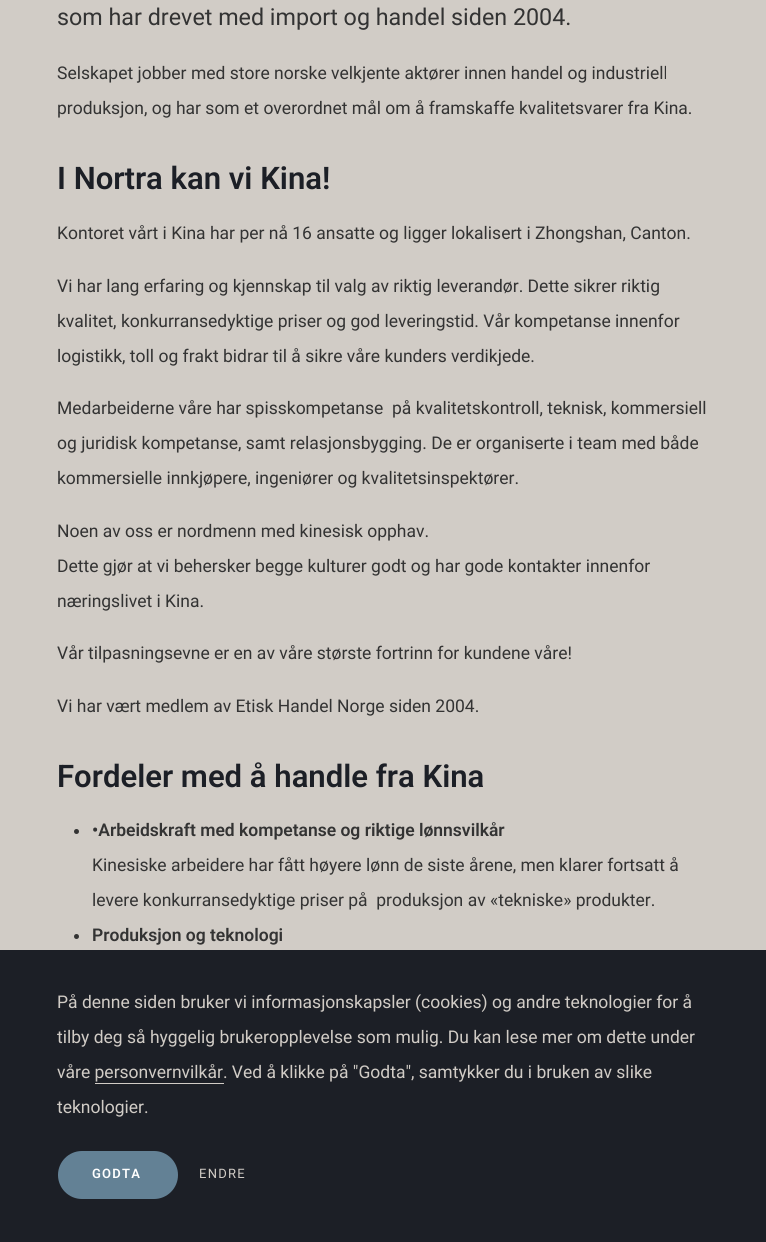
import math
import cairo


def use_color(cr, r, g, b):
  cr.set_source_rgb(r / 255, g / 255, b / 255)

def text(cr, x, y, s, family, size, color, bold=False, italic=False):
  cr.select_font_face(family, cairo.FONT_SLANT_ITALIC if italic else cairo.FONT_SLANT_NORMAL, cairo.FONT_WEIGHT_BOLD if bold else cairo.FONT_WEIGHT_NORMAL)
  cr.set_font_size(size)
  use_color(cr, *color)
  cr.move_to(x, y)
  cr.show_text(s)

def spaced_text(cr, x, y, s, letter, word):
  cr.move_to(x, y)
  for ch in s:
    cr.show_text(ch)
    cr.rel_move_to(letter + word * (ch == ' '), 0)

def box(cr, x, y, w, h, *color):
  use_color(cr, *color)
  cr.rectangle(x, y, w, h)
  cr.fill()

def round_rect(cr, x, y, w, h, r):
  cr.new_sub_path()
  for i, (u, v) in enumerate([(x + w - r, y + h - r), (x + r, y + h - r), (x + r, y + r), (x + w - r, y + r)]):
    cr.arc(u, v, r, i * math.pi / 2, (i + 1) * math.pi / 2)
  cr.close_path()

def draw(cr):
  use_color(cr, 209, 204, 198)
  cr.paint()
  use_color(cr, 51, 51, 51)
  cr.arc(76.5, 831.5, 2.5, 0, 2 * math.pi)
  cr.fill()
  cr.arc(76.5, 936.5, 2.5, 0, 2 * math.pi)
  cr.fill()
  box(cr, 0, 950, 766, 292, 28, 31, 38)
  box(cr, 95, 1083, 129, 1, 209, 204, 198)
  use_color(cr, 99, 129, 149)
  round_rect(cr, 58, 1151, 120, 48, 24)
  cr.fill()
  text(cr, 57, 25, "som har drevet med import og handel siden 2004.", "Roboto", 23.3, (51, 51, 51))
  text(cr, 57, 79, "Selskapet jobber med store norske velkjente aktører innen handel og industriell", "Roboto", 17.5, (51, 51, 51))
  text(cr, 57, 114, "produksjon, og har som et overordnet mål om å framskaffe kvalitetsvarer fra Kina.", "Roboto", 17.5, (51, 51, 51))
  text(cr, 57, 189, "I Nortra kan vi Kina!", "Roboto SemiBold", 31.1, (28, 31, 38))
  text(cr, 57, 239, "Kontoret vårt i Kina har per nå 16 ansatte og ligger lokalisert i Zhongshan, Canton.", "Roboto", 17.5, (51, 51, 51))
  text(cr, 57, 292, "Vi har lang erfaring og kjennskap til valg av riktig leverandør. Dette sikrer riktig", "Roboto", 17.5, (51, 51, 51))
  text(cr, 57, 327, "kvalitet, konkurransedyktige priser og god leveringstid. Vår kompetanse innenfor", "Roboto", 17.5, (51, 51, 51))
  text(cr, 57, 362, "logistikk, toll og frakt bidrar til å sikre våre kunders verdikjede.", "Roboto", 17.5, (51, 51, 51))
  text(cr, 57, 414, "Medarbeiderne våre har spisskompetanse  på kvalitetskontroll, teknisk, kommersiell", "Roboto", 17.5, (51, 51, 51))
  text(cr, 57, 449, "og juridisk kompetanse, samt relasjonsbygging. De er organiserte i team med både", "Roboto", 17.5, (51, 51, 51))
  text(cr, 57, 484, "kommersielle innkjøpere, ingeniører og kvalitetsinspektører.", "Roboto", 17.5, (51, 51, 51))
  text(cr, 57, 537, "Noen av oss er nordmenn med kinesisk opphav.", "Roboto", 17.5, (51, 51, 51))
  text(cr, 57, 572, "Dette gjør at vi behersker begge kulturer godt og har gode kontakter innenfor", "Roboto", 17.5, (51, 51, 51))
  text(cr, 57, 607, "næringslivet i Kina.", "Roboto", 17.5, (51, 51, 51))
  text(cr, 57, 659, "Vår tilpasningsevne er en av våre største fortrinn for kundene våre!", "Roboto", 17.5, (51, 51, 51))
  text(cr, 57, 712, "Vi har vært medlem av Etisk Handel Norge siden 2004.", "Roboto", 17.5, (51, 51, 51))
  text(cr, 57, 787, "Fordeler med å handle fra Kina", "Roboto SemiBold", 31.1, (28, 31, 38))
  text(cr, 92, 836, "•Arbeidskraft med kompetanse og riktige lønnsvilkår", "Roboto SemiBold", 17.5, (51, 51, 51))
  text(cr, 92, 871, "Kinesiske arbeidere har fått høyere lønn de siste årene, men klarer fortsatt å", "Roboto", 17.5, (51, 51, 51))
  text(cr, 92, 906, "levere konkurransedyktige priser på  produksjon av «tekniske» produkter.", "Roboto", 17.5, (51, 51, 51))
  text(cr, 92, 941, "Produksjon og teknologi", "Roboto SemiBold", 17.5, (51, 51, 51))
  text(cr, 57, 1008, "På denne siden bruker vi informasjonskapsler (cookies) og andre teknologier for å", "Roboto", 17.5, (209, 204, 198))
  text(cr, 57, 1043, "tilby deg så hyggelig brukeropplevelse som mulig. Du kan lese mer om dette under", "Roboto", 17.5, (209, 204, 198))
  text(cr, 57, 1078, "våre personvernvilkår. Ved å klikke på \"Godta\", samtykker du i bruken av slike", "Roboto", 17.5, (209, 204, 198))
  text(cr, 57, 1113, "teknologier.", "Roboto", 17.5, (209, 204, 198))
  cr.select_font_face("Roboto SemiBold")
  cr.set_font_size(13)
  use_color(cr, 255, 255, 255)
  spaced_text(cr, 92, 1178, "GODTA", 1.25, 0)
  cr.select_font_face("Roboto")
  use_color(cr, 209, 204, 198)
  spaced_text(cr, 199, 1178, "ENDRE", 1.25, 0)


surface = cairo.ImageSurface(cairo.FORMAT_RGB24, 766, 1242)
cr = cairo.Context(surface)
options = cairo.FontOptions()
options.set_hint_metrics(cairo.HINT_METRICS_OFF)
options.set_hint_style(cairo.HINT_STYLE_NONE)
cr.set_font_options(options)
cr.set_miter_limit(4)
draw(cr)
surface.write_to_png("out.png")
